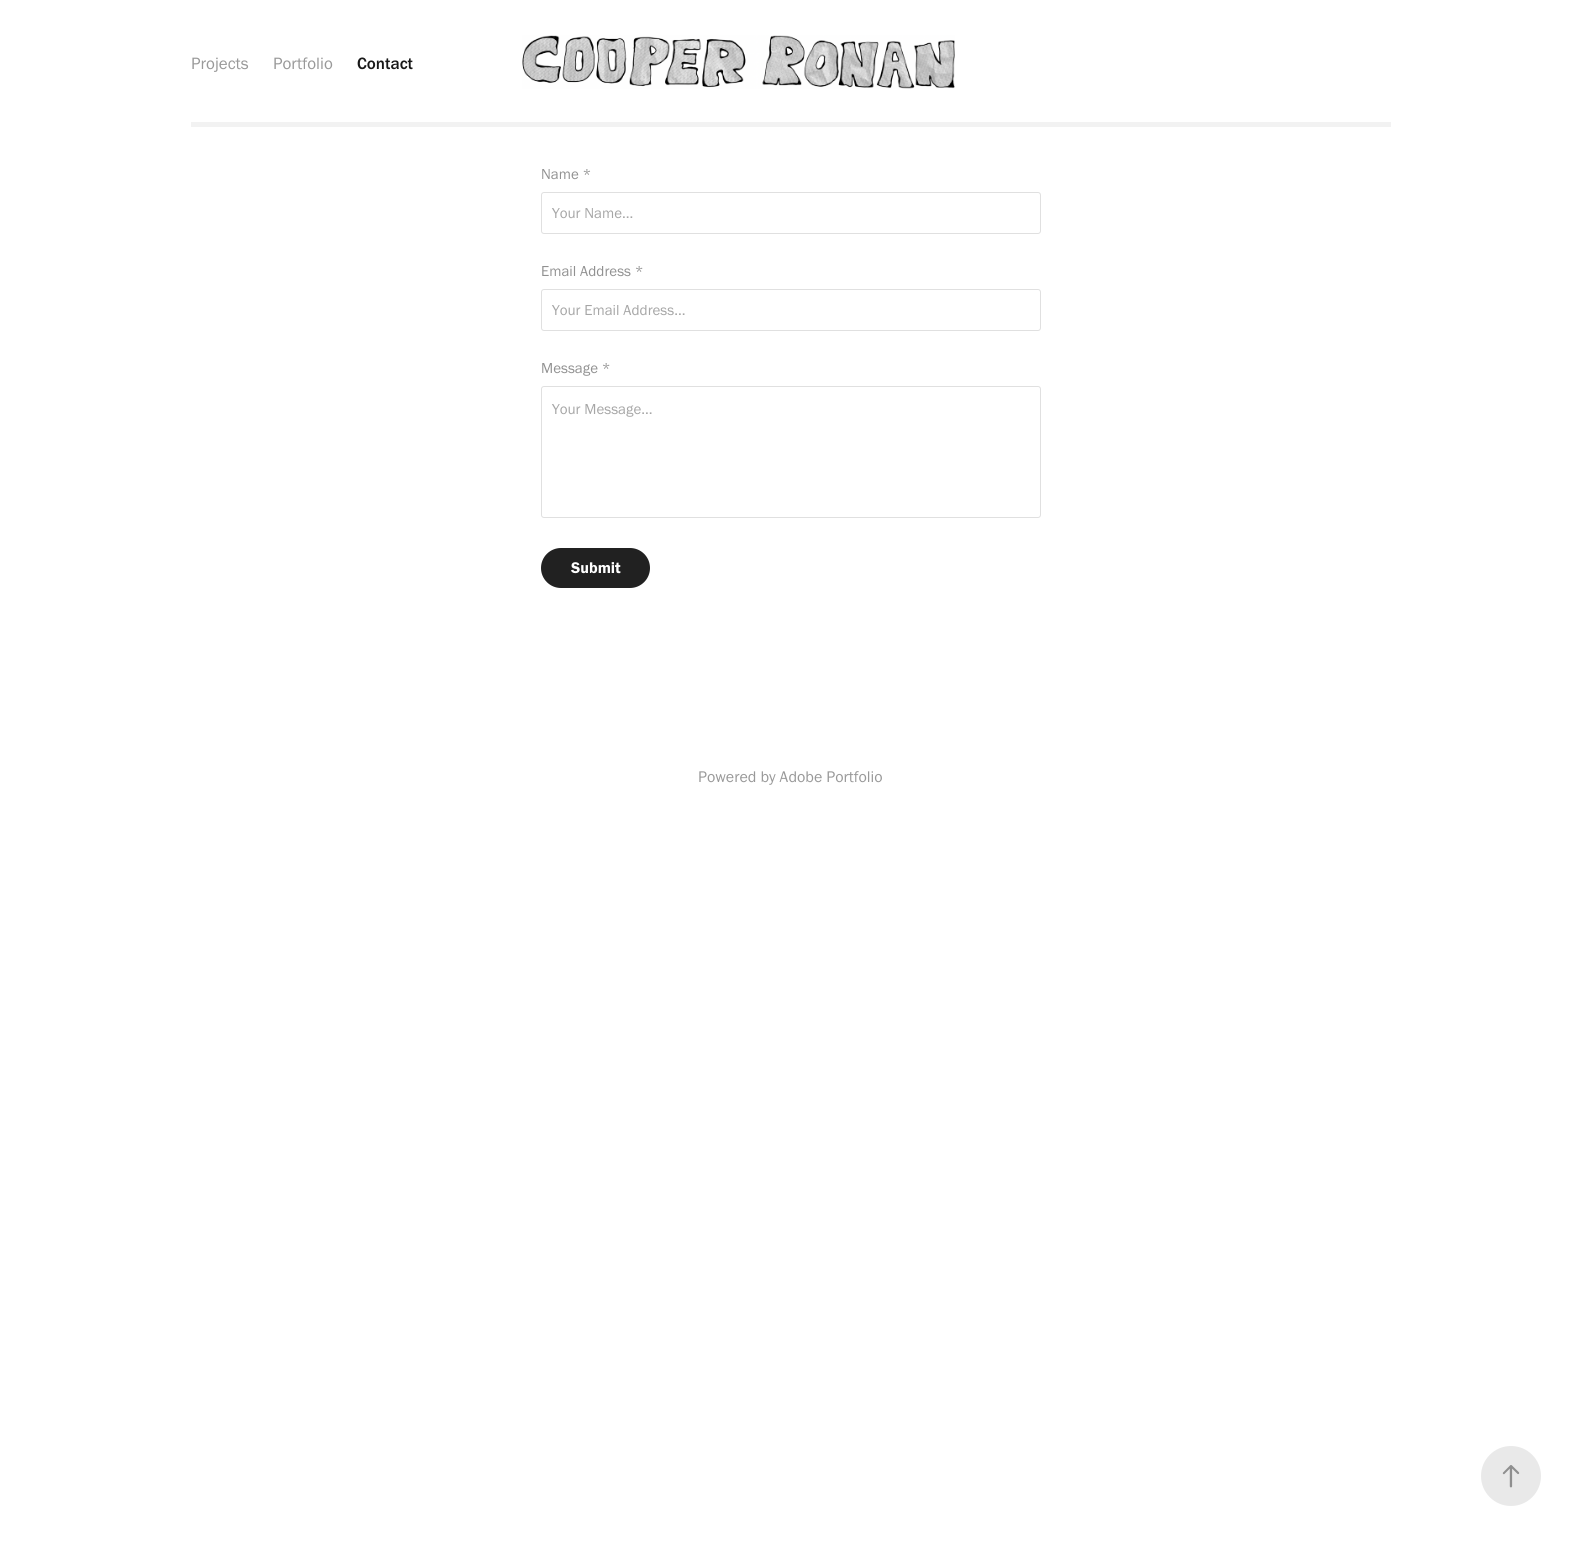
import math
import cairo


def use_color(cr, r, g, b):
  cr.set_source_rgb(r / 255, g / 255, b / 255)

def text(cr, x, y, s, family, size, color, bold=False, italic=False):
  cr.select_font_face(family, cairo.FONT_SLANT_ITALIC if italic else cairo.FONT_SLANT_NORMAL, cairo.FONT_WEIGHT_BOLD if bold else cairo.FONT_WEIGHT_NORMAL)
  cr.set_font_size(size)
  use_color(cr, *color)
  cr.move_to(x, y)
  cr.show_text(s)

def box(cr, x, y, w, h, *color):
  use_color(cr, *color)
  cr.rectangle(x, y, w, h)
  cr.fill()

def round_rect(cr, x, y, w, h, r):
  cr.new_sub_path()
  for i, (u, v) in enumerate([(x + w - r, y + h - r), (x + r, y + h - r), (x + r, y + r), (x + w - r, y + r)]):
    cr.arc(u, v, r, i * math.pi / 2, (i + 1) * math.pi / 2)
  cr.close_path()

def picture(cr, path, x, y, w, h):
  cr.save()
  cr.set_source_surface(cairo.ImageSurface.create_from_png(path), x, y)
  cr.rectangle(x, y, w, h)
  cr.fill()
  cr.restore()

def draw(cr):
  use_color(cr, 255, 255, 255)
  cr.paint()
  box(cr, 191, 122, 1200, 5, 242, 242, 242)
  picture(cr, "img_01.png", 522, 35, 433, 54)
  round_rect(cr, 541.5, 192.5, 499, 41, 2.5)
  use_color(cr, 224, 224, 224)
  cr.set_line_width(1)
  cr.stroke()
  round_rect(cr, 541.5, 289.5, 499, 41, 2.5)
  cr.stroke()
  round_rect(cr, 541.5, 386.5, 499, 131, 2.5)
  cr.stroke()
  use_color(cr, 33, 33, 33)
  round_rect(cr, 541, 548, 109, 40, 20)
  cr.fill()
  use_color(cr, 233, 233, 233)
  cr.arc(1511, 1476, 30, 0, 2 * math.pi)
  cr.fill()
  picture(cr, "img_02.png", 1502, 1465, 18, 23)
  text(cr, 191, 69, "Projects", "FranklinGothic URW", 17, (153, 153, 153))
  text(cr, 273, 69, "Portfolio", "FranklinGothic URW", 17, (153, 153, 153))
  text(cr, 357, 69, "Contact", "FranklinGothic URW Medium", 17, (25, 25, 25))
  text(cr, 541, 179, "Name *", "FranklinGothic URW", 15, (145, 145, 145))
  text(cr, 552, 218, "Your Name...", "FranklinGothic URW", 15, (166, 166, 166))
  text(cr, 541, 276, "Email Address *", "FranklinGothic URW", 15, (145, 145, 145))
  text(cr, 552, 315, "Your Email Address...", "FranklinGothic URW", 15, (166, 166, 166))
  text(cr, 541, 373, "Message *", "FranklinGothic URW", 15, (145, 145, 145))
  text(cr, 552, 414, "Your Message...", "FranklinGothic URW", 15, (166, 166, 166))
  text(cr, 571, 573, "Submit", "FranklinGothic URW SemiBold", 16, (255, 255, 255))
  text(cr, 698, 782, "Powered by Adobe Portfolio", "FranklinGothic URW", 16, (153, 153, 153))


surface = cairo.ImageSurface(cairo.FORMAT_RGB24, 1581, 1546)
cr = cairo.Context(surface)
options = cairo.FontOptions()
options.set_hint_metrics(cairo.HINT_METRICS_OFF)
options.set_hint_style(cairo.HINT_STYLE_NONE)
cr.set_font_options(options)
cr.set_miter_limit(4)
draw(cr)
surface.write_to_png("out.png")
